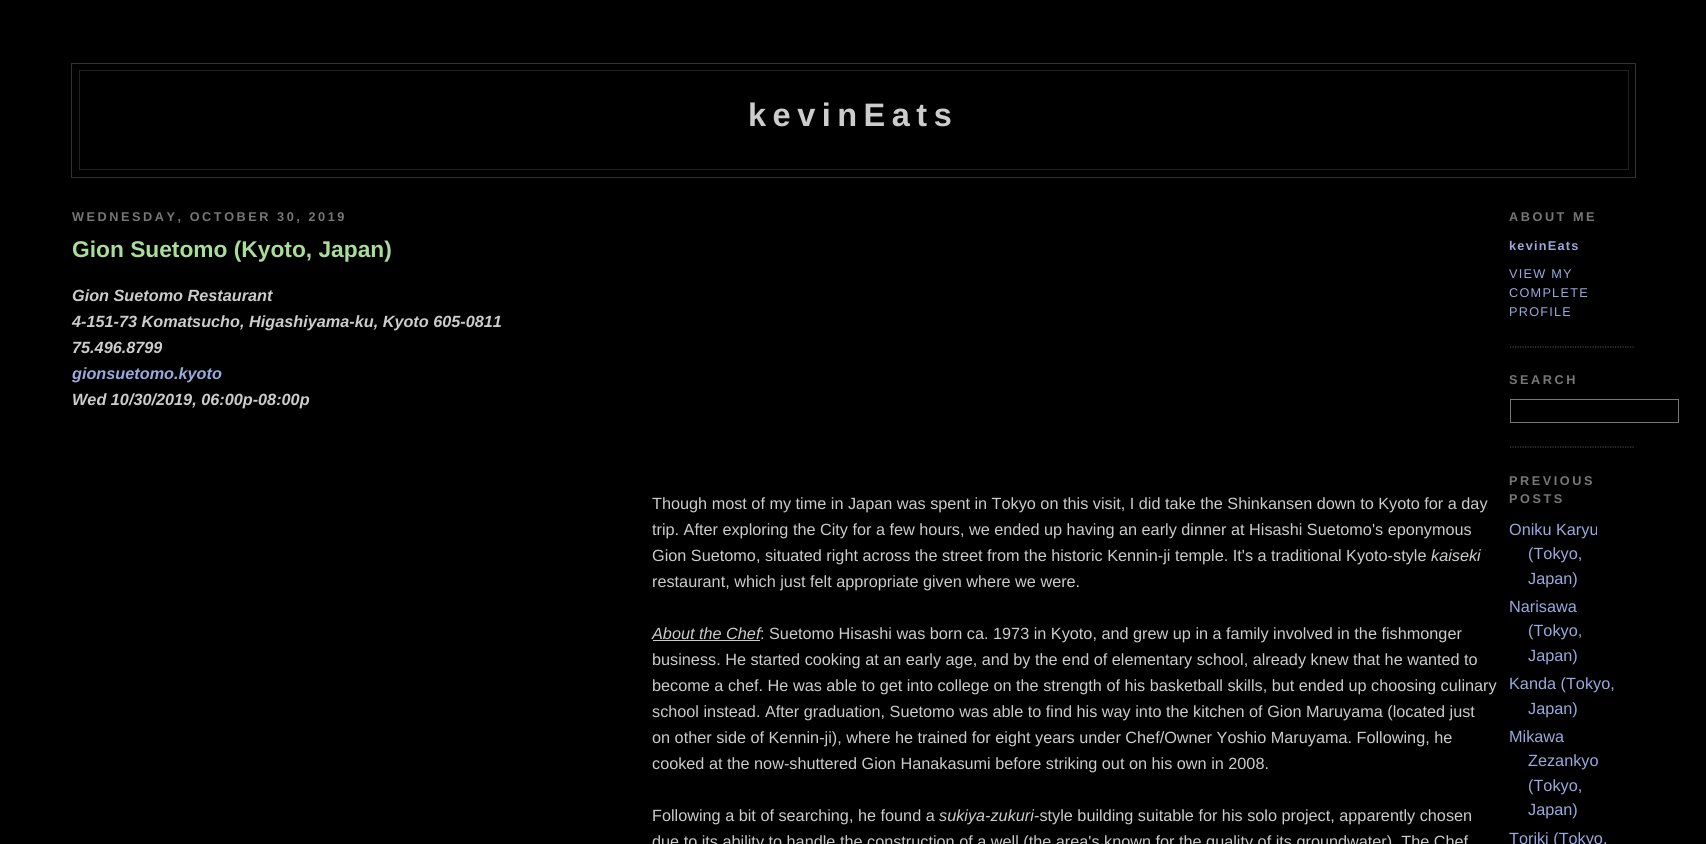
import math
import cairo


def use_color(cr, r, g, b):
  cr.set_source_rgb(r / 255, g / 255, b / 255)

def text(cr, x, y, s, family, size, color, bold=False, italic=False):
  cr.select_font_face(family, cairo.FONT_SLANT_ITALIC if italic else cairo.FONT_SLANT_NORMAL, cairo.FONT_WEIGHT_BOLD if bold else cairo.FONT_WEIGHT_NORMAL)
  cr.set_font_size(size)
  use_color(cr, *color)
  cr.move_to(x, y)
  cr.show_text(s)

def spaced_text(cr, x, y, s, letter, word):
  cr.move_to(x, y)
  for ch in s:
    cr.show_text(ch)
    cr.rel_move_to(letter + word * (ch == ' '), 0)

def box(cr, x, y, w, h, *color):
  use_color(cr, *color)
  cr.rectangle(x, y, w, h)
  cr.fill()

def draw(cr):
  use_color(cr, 0, 0, 0)
  cr.paint()
  cr.rectangle(71.5, 63.5, 1564, 114)
  use_color(cr, 51, 51, 51)
  cr.set_line_width(1)
  cr.stroke()
  box(cr, 79, 70, 1550, 1, 34, 34, 34)
  box(cr, 1628, 70, 1, 100, 34, 34, 34)
  box(cr, 79, 70, 1, 74, 34, 34, 34)
  box(cr, 79, 169, 1550, 1, 34, 34, 34)
  box(cr, 79, 144, 1, 26, 34, 34, 34)
  box(cr, 653, 640, 107, 1, 204, 204, 204)
  cr.new_path()
  cr.move_to(1510, 347)
  cr.line_to(1635, 347)
  use_color(cr, 68, 68, 68)
  cr.set_line_width(1.2)
  cr.set_dash([1.25, 1.25])
  cr.stroke()
  cr.new_path()
  cr.move_to(1510, 447)
  cr.line_to(1635, 447)
  cr.stroke()
  cr.rectangle(1510.5, 399.5, 168, 23)
  use_color(cr, 119, 119, 119)
  cr.set_line_width(1)
  cr.set_dash([])
  cr.stroke()
  cr.select_font_face("Liberation Sans", cairo.FONT_SLANT_NORMAL, cairo.FONT_WEIGHT_BOLD)
  cr.set_font_size(32.5)
  use_color(cr, 204, 204, 204)
  spaced_text(cr, 748, 126, "kevinEats", 6.5, 0)
  cr.set_font_size(12.7)
  use_color(cr, 119, 119, 119)
  spaced_text(cr, 72, 221, "WEDNESDAY, OCTOBER 30, 2019", 2.55, 0)
  text(cr, 72, 257, "Gion Suetomo (Kyoto, Japan)", "Liberation Sans", 22.75, (170, 221, 153), bold=True)
  text(cr, 72, 301, "Gion Suetomo Restaurant", "Liberation Sans", 16.25, (204, 204, 204), bold=True, italic=True)
  text(cr, 72, 327, "4-151-73 Komatsucho, Higashiyama-ku, Kyoto 605-0811", "Liberation Sans", 16.25, (204, 204, 204), bold=True, italic=True)
  text(cr, 72, 353, "75.496.8799", "Liberation Sans", 16.25, (204, 204, 204), bold=True, italic=True)
  text(cr, 72, 379, "gionsuetomo.kyoto", "Liberation Sans", 16.25, (153, 170, 221), bold=True, italic=True)
  text(cr, 72, 405, "Wed 10/30/2019, 06:00p-08:00p", "Liberation Sans", 16.25, (204, 204, 204), bold=True, italic=True)
  text(cr, 652, 509, "Though most of my time in Japan was spent in Tokyo on this visit, I did take the Shinkansen down to Kyoto for a day", "Liberation Sans", 16.25, (204, 204, 204))
  text(cr, 652, 535, "trip. After exploring the City for a few hours, we ended up having an early dinner at Hisashi Suetomo's eponymous", "Liberation Sans", 16.25, (204, 204, 204))
  text(cr, 652, 561, "Gion Suetomo, situated right across the street from the historic Kennin-ji temple. It's a traditional Kyoto-style", "Liberation Sans", 16.25, (204, 204, 204))
  text(cr, 1431, 561, "kaiseki", "Liberation Sans", 16.25, (204, 204, 204), italic=True)
  text(cr, 652, 587, "restaurant, which just felt appropriate given where we were.", "Liberation Sans", 16.25, (204, 204, 204))
  text(cr, 652, 639, "About the Chef", "Liberation Sans", 16.25, (204, 204, 204), italic=True)
  text(cr, 760, 639, ": Suetomo Hisashi was born ca. 1973 in Kyoto, and grew up in a family involved in the fishmonger", "Liberation Sans", 16.25, (204, 204, 204))
  text(cr, 652, 665, "business. He started cooking at an early age, and by the end of elementary school, already knew that he wanted to", "Liberation Sans", 16.25, (204, 204, 204))
  text(cr, 652, 691, "become a chef. He was able to get into college on the strength of his basketball skills, but ended up choosing culinary", "Liberation Sans", 16.25, (204, 204, 204))
  text(cr, 652, 717, "school instead. After graduation, Suetomo was able to find his way into the kitchen of Gion Maruyama (located just", "Liberation Sans", 16.25, (204, 204, 204))
  text(cr, 652, 743, "on other side of Kennin-ji), where he trained for eight years under Chef/Owner Yoshio Maruyama. Following, he", "Liberation Sans", 16.25, (204, 204, 204))
  text(cr, 652, 769, "cooked at the now-shuttered Gion Hanakasumi before striking out on his own in 2008.", "Liberation Sans", 16.25, (204, 204, 204))
  text(cr, 652, 821, "Following a bit of searching, he found a", "Liberation Sans", 16.25, (204, 204, 204))
  text(cr, 939, 821, "sukiya-zukuri", "Liberation Sans", 16.25, (204, 204, 204), italic=True)
  text(cr, 1034, 821, "-style building suitable for his solo project, apparently chosen", "Liberation Sans", 16.25, (204, 204, 204))
  text(cr, 652, 847, "due to its ability to handle the construction of a well (the area's known for the quality of its groundwater). The Chef", "Liberation Sans", 16.25, (204, 204, 204))
  cr.select_font_face("Liberation Sans", cairo.FONT_SLANT_NORMAL, cairo.FONT_WEIGHT_BOLD)
  cr.set_font_size(12.7)
  use_color(cr, 119, 119, 119)
  spaced_text(cr, 1509, 221, "ABOUT ME", 2.55, 0)
  use_color(cr, 153, 170, 221)
  spaced_text(cr, 1509, 250, "kevinEats", 1.25, 0)
  cr.select_font_face("Liberation Sans")
  spaced_text(cr, 1509, 278, "VIEW MY", 1.25, 0)
  spaced_text(cr, 1509, 297, "COMPLETE", 1.25, 0)
  spaced_text(cr, 1509, 316, "PROFILE", 1.25, 0)
  cr.select_font_face("Liberation Sans", cairo.FONT_SLANT_NORMAL, cairo.FONT_WEIGHT_BOLD)
  use_color(cr, 119, 119, 119)
  spaced_text(cr, 1509, 384, "SEARCH", 2.55, 0)
  spaced_text(cr, 1509, 485, "PREVIOUS", 2.55, 0)
  spaced_text(cr, 1509, 503, "POSTS", 2.55, 0)
  text(cr, 1509, 535, "Oniku Karyu", "Liberation Sans", 16.25, (153, 170, 221))
  text(cr, 1528, 559, "(Tokyo,", "Liberation Sans", 16.25, (153, 170, 221))
  text(cr, 1528, 584, "Japan)", "Liberation Sans", 16.25, (153, 170, 221))
  text(cr, 1509, 612, "Narisawa", "Liberation Sans", 16.25, (153, 170, 221))
  text(cr, 1528, 636, "(Tokyo,", "Liberation Sans", 16.25, (153, 170, 221))
  text(cr, 1528, 661, "Japan)", "Liberation Sans", 16.25, (153, 170, 221))
  text(cr, 1509, 689, "Kanda (Tokyo,", "Liberation Sans", 16.25, (153, 170, 221))
  text(cr, 1528, 714, "Japan)", "Liberation Sans", 16.25, (153, 170, 221))
  text(cr, 1509, 742, "Mikawa", "Liberation Sans", 16.25, (153, 170, 221))
  text(cr, 1528, 766, "Zezankyo", "Liberation Sans", 16.25, (153, 170, 221))
  text(cr, 1528, 791, "(Tokyo,", "Liberation Sans", 16.25, (153, 170, 221))
  text(cr, 1528, 815, "Japan)", "Liberation Sans", 16.25, (153, 170, 221))
  text(cr, 1509, 844, "Toriki (Tokyo,", "Liberation Sans", 16.25, (153, 170, 221))


surface = cairo.ImageSurface(cairo.FORMAT_RGB24, 1706, 844)
cr = cairo.Context(surface)
options = cairo.FontOptions()
options.set_hint_metrics(cairo.HINT_METRICS_OFF)
options.set_hint_style(cairo.HINT_STYLE_NONE)
cr.set_font_options(options)
cr.set_miter_limit(4)
draw(cr)
surface.write_to_png("out.png")
